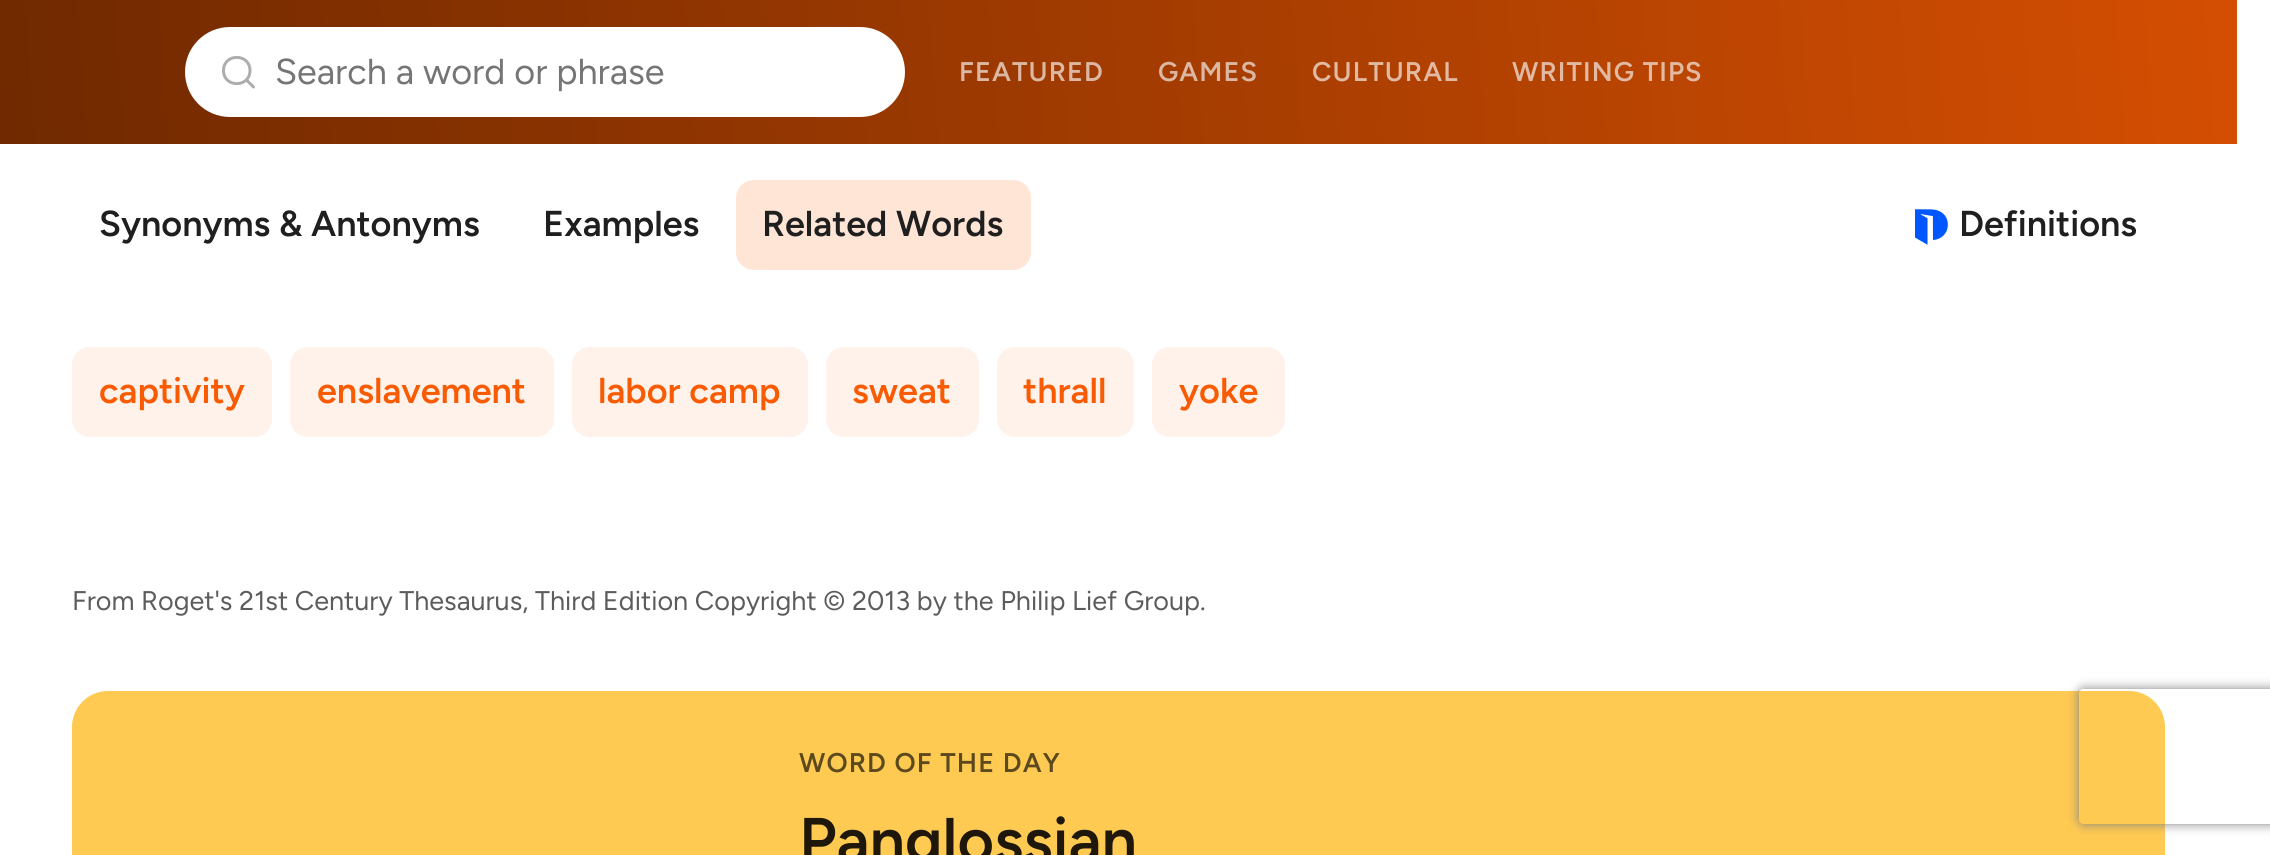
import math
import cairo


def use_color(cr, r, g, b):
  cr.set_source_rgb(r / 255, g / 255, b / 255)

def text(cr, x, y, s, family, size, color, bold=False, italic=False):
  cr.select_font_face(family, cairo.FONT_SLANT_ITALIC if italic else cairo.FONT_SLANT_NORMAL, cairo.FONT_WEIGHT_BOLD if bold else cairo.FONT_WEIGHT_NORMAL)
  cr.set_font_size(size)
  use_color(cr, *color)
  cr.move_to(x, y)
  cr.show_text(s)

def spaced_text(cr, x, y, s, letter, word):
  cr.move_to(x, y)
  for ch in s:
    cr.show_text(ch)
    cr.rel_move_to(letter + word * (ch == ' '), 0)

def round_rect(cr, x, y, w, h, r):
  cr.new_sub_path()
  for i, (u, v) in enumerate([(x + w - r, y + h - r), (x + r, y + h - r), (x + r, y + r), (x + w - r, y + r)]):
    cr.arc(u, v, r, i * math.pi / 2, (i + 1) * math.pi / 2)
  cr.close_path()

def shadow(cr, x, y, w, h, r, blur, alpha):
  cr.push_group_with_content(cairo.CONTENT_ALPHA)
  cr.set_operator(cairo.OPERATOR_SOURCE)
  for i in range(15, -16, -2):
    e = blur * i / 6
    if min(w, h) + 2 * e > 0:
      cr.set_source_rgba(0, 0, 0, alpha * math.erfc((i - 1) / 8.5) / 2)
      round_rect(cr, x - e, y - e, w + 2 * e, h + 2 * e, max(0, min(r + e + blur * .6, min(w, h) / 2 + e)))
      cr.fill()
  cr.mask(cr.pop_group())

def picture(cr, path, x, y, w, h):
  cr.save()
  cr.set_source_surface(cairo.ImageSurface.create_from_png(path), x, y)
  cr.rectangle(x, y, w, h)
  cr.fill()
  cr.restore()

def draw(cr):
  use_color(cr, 255, 255, 255)
  cr.paint()
  gradient = cairo.LinearGradient(0.7, 154, 2236, -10)
  gradient.add_color_stop_rgba(0, 0.439, 0.161, 0, 1)
  gradient.add_color_stop_rgba(1, 0.831, 0.306, 0.008, 1)
  cr.set_source(gradient)
  cr.rectangle(0, 0, 2237, 144)
  cr.fill()
  use_color(cr, 255, 255, 255)
  round_rect(cr, 185, 27, 720, 90, 45)
  cr.fill()
  cr.new_path()
  cr.move_to(253.5, 87)
  cr.line_to(246.5, 80)
  cr.move_to(250, 70.5)
  cr.curve_to(250, 88, 223.5, 88, 223.5, 70.5)
  cr.curve_to(223.5, 53, 250, 53, 250, 70.5)
  cr.close_path()
  use_color(cr, 173, 173, 173)
  cr.set_line_width(3)
  cr.set_line_cap(cairo.LINE_CAP_ROUND)
  cr.set_line_join(cairo.LINE_JOIN_ROUND)
  cr.stroke()
  use_color(cr, 255, 229, 214)
  round_rect(cr, 736, 180, 295, 90, 18)
  cr.fill()
  picture(cr, "img_01.png", 1915, 209, 33, 36)
  use_color(cr, 255, 242, 235)
  round_rect(cr, 72, 347, 200, 90, 18)
  cr.fill()
  round_rect(cr, 290, 347, 264, 90, 18)
  cr.fill()
  round_rect(cr, 572, 347, 236, 90, 18)
  cr.fill()
  round_rect(cr, 826, 347, 153, 90, 18)
  cr.fill()
  round_rect(cr, 997, 347, 137, 90, 18)
  cr.fill()
  round_rect(cr, 1152, 347, 133, 90, 18)
  cr.fill()
  use_color(cr, 255, 202, 82)
  round_rect(cr, 72, 691, 2093, 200, 36)
  cr.fill()
  cr.save()
  cr.set_fill_rule(cairo.FILL_RULE_EVEN_ODD)
  cr.new_path()
  cr.move_to(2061, 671)
  cr.line_to(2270, 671)
  cr.line_to(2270, 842)
  cr.line_to(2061, 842)
  cr.close_path()
  cr.move_to(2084, 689)
  cr.line_to(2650, 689)
  cr.curve_to(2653, 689, 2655, 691, 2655, 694)
  cr.line_to(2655, 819)
  cr.curve_to(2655, 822, 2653, 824, 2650, 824)
  cr.line_to(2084, 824)
  cr.curve_to(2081, 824, 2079, 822, 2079, 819)
  cr.line_to(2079, 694)
  cr.curve_to(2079, 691, 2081, 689, 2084, 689)
  cr.close_path()
  cr.clip()
  use_color(cr, 128, 128, 128)
  shadow(cr, 2079, 689, 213, 135, 5, 5.5, 1)
  cr.restore()
  text(cr, 275, 84, "Search a word or phrase", "Figtree", 36, (117, 117, 117))
  cr.select_font_face("Figtree SemiBold")
  cr.set_font_size(27)
  use_color(cr, 220, 184, 164)
  spaced_text(cr, 959, 81, "FEATURED", 1.1, 0)
  spaced_text(cr, 1158, 81, "GAMES", 1.1, 0)
  use_color(cr, 226, 186, 164)
  spaced_text(cr, 1312, 81, "CULTURAL", 1.1, 0)
  spaced_text(cr, 1512, 81, "WRITING TIPS", 1.1, 0)
  text(cr, 99, 236, "Synonyms & Antonyms", "Figtree SemiBold", 36, (31, 31, 31))
  text(cr, 543, 236, "Examples", "Figtree SemiBold", 36, (31, 31, 31))
  text(cr, 762, 236, "Related Words", "Figtree SemiBold", 36, (31, 31, 31))
  text(cr, 1959, 236, "Definitions", "Figtree SemiBold", 36, (31, 31, 31))
  text(cr, 99, 403, "captivity", "Figtree SemiBold", 36, (249, 91, 2))
  text(cr, 317, 403, "enslavement", "Figtree SemiBold", 36, (249, 91, 2))
  text(cr, 598, 403, "labor camp", "Figtree SemiBold", 36, (249, 91, 2))
  text(cr, 852, 403, "sweat", "Figtree SemiBold", 36, (249, 91, 2))
  text(cr, 1023, 403, "thrall", "Figtree SemiBold", 36, (249, 91, 2))
  text(cr, 1179, 403, "yoke", "Figtree SemiBold", 36, (249, 91, 2))
  text(cr, 72, 610, "From Roget's 21st Century Thesaurus, Third Edition Copyright © 2013 by the Philip Lief Group.", "Figtree", 27, (92, 92, 92))
  cr.select_font_face("Figtree SemiBold")
  use_color(cr, 92, 73, 30)
  spaced_text(cr, 799, 772, "WORD OF THE DAY", 1.1, 0)
  text(cr, 799, 862, "Panglossian", "Figtree SemiBold", 63, (31, 24, 10))


surface = cairo.ImageSurface(cairo.FORMAT_RGB24, 2270, 855)
cr = cairo.Context(surface)
options = cairo.FontOptions()
options.set_hint_metrics(cairo.HINT_METRICS_OFF)
options.set_hint_style(cairo.HINT_STYLE_NONE)
cr.set_font_options(options)
cr.set_miter_limit(4)
draw(cr)
surface.write_to_png("out.png")
